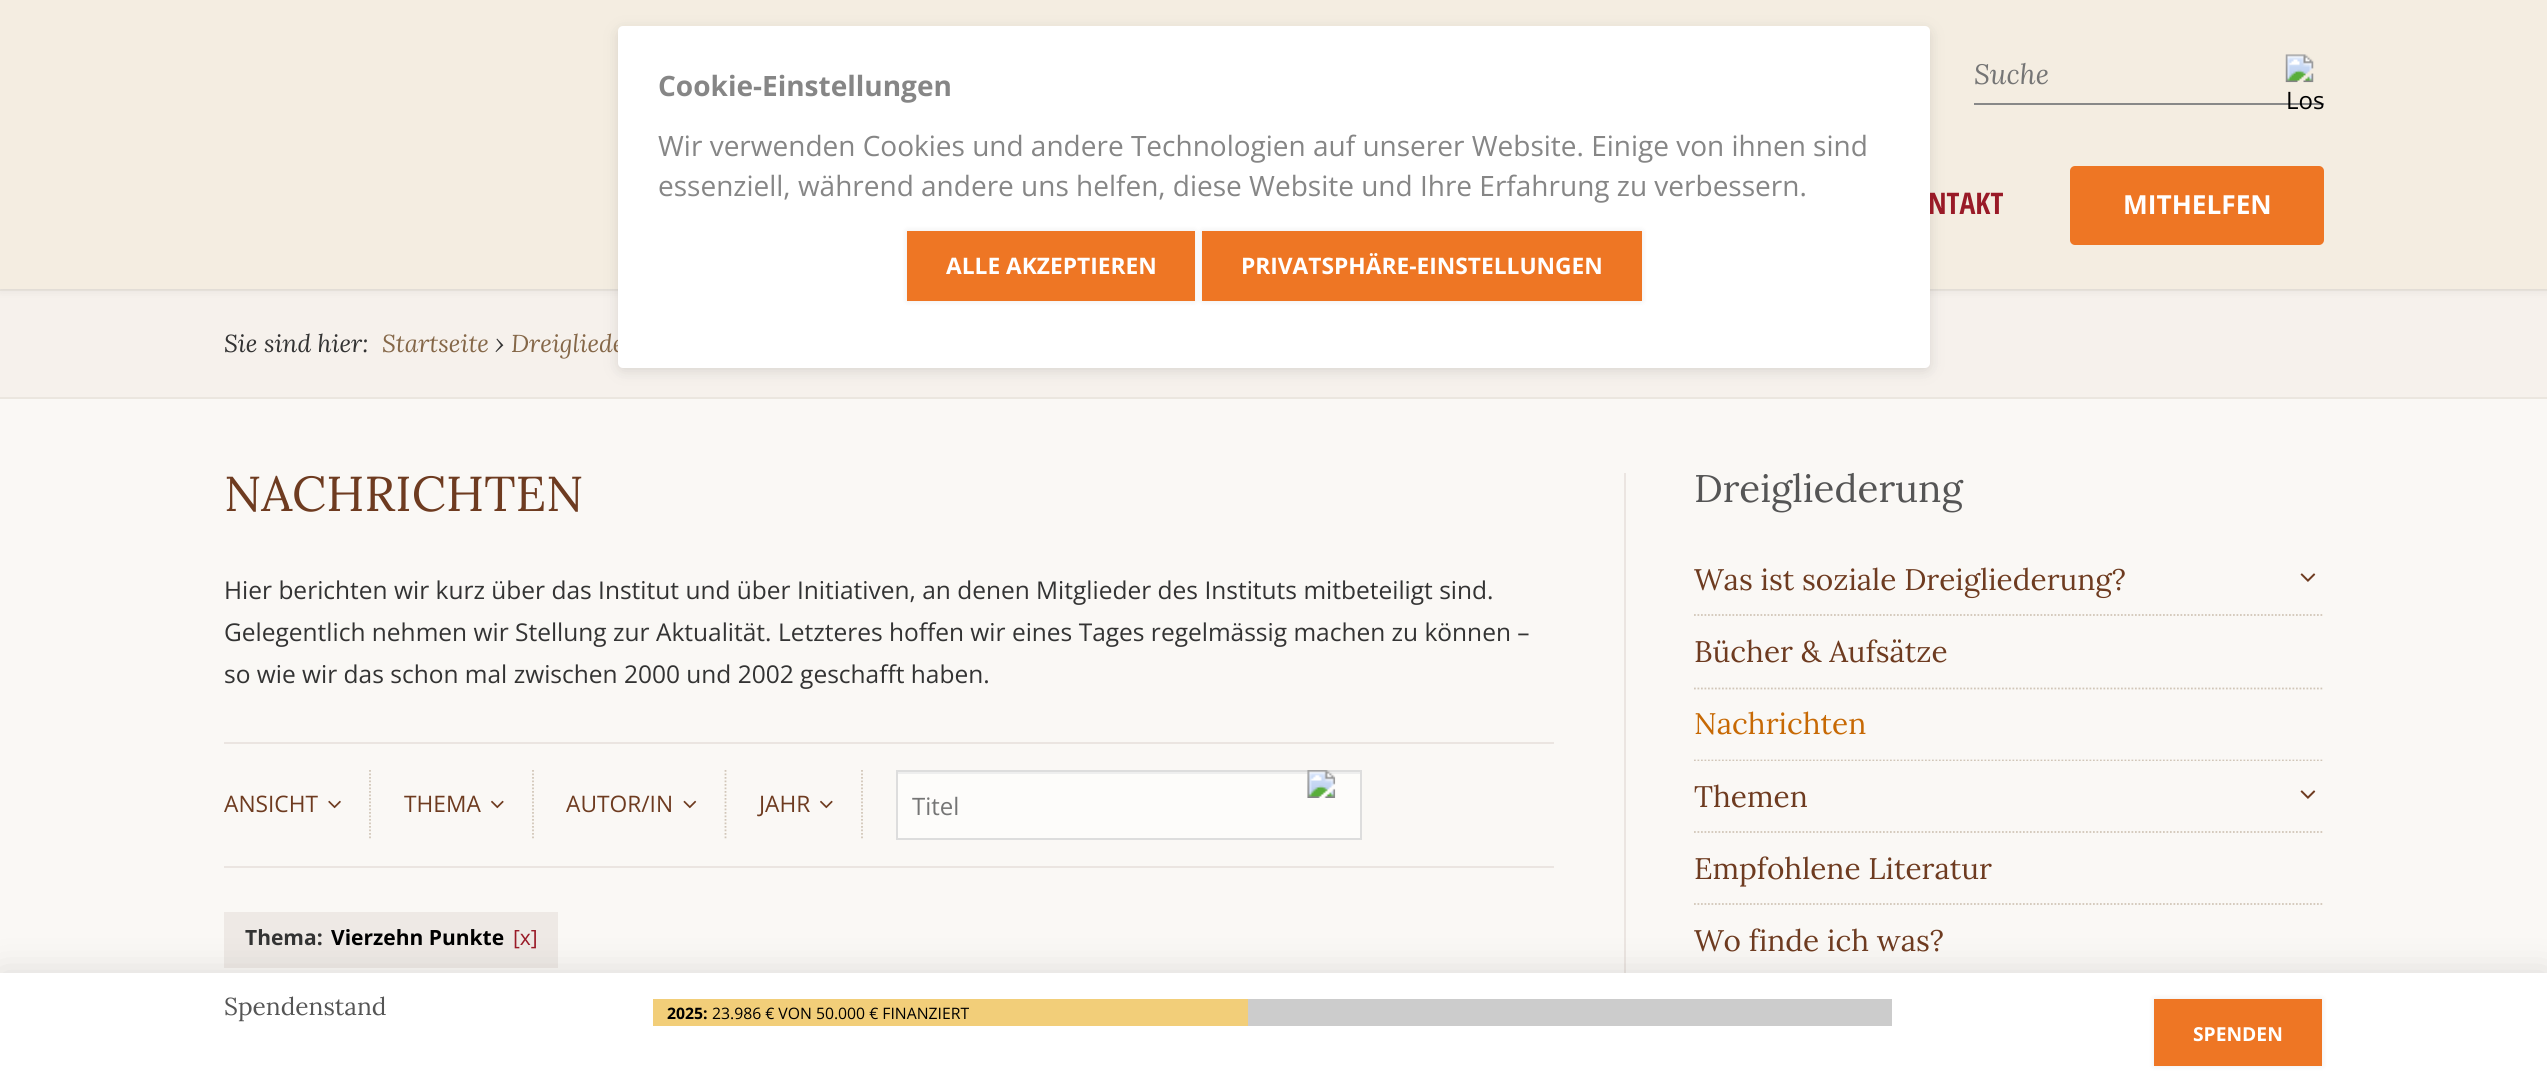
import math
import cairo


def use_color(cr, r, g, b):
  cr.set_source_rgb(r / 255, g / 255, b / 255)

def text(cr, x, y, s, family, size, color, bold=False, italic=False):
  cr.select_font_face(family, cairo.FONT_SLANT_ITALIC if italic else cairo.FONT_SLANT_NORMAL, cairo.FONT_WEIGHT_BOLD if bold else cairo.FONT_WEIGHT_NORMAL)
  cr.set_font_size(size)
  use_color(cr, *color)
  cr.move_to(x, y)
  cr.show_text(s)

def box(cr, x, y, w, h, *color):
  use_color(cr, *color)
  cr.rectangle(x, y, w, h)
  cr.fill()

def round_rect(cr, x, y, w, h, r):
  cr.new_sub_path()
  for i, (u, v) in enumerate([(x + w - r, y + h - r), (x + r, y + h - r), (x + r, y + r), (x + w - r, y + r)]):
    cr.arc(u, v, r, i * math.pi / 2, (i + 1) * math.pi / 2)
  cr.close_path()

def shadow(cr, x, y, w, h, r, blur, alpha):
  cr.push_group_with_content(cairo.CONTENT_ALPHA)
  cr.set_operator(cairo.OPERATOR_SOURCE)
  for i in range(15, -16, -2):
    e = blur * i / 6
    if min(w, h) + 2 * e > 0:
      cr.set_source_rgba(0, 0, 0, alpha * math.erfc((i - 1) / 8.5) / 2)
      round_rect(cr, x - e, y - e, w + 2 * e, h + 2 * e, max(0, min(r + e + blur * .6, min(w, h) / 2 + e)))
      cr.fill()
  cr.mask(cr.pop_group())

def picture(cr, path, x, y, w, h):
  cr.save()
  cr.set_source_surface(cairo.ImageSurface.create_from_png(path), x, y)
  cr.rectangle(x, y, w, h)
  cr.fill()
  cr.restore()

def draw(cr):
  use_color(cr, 250, 248, 245)
  cr.paint()
  box(cr, 0, 291, 2547, 106, 246, 241, 236)
  box(cr, 0, 289, 2547, 2, 235, 230, 223)
  use_color(cr, 0, 0, 0)
  shadow(cr, 0, 0, 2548, 289, 0, 6, 0.08)
  box(cr, 0, 0, 2547, 289, 244, 237, 225)
  box(cr, 1974, 103, 350, 2, 136, 136, 136)
  picture(cr, "img_01.png", 2285, 54, 29, 29)
  use_color(cr, 238, 118, 36)
  round_rect(cr, 2070, 166, 254, 79, 5)
  cr.fill()
  box(cr, 0, 397, 2547, 2, 235, 230, 223)
  box(cr, 224, 742, 1330, 2, 235, 229, 225)
  box(cr, 224, 866, 1330, 2, 235, 229, 225)
  cr.new_path()
  cr.move_to(370, 770)
  cr.line_to(370, 840)
  use_color(cr, 209, 198, 184)
  cr.set_line_width(1.8)
  cr.set_dash([1.75, 1.75])
  cr.stroke()
  picture(cr, "img_02.png", 328, 800, 13, 9)
  cr.new_path()
  cr.move_to(533, 770)
  cr.line_to(533, 840)
  cr.stroke()
  picture(cr, "img_03.png", 491, 800, 13, 9)
  cr.new_path()
  cr.move_to(725.5, 770)
  cr.line_to(725.5, 840)
  cr.stroke()
  picture(cr, "img_04.png", 683, 800, 14, 9)
  cr.new_path()
  cr.move_to(862, 770)
  cr.line_to(862, 840)
  cr.stroke()
  picture(cr, "img_03.png", 820, 800, 13, 9)
  box(cr, 898, 774, 462, 64, 253, 252, 250)
  box(cr, 898, 772, 462, 2, 238, 238, 238)
  cr.rectangle(897, 771, 464, 68)
  use_color(cr, 221, 221, 221)
  cr.set_line_width(2)
  cr.set_dash([])
  cr.stroke()
  picture(cr, "img_05.png", 1307, 770, 29, 28)
  box(cr, 224, 912, 334, 56, 238, 233, 229)
  cr.new_path()
  cr.move_to(1694, 615)
  cr.line_to(2324, 615)
  use_color(cr, 209, 198, 184)
  cr.set_line_width(1.8)
  cr.set_dash([1.75, 1.75])
  cr.stroke()
  picture(cr, "img_06.png", 2300, 573, 16, 9)
  cr.new_path()
  cr.move_to(1694, 688.5)
  cr.line_to(2324, 688.5)
  cr.stroke()
  cr.save()
  cr.rectangle(1694, 690, 630, 71)
  cr.clip()
  cr.new_path()
  cr.move_to(1694, 760.5)
  cr.line_to(2324, 760.5)
  cr.stroke()
  cr.restore()
  cr.new_path()
  cr.move_to(1694, 832)
  cr.line_to(2324, 832)
  cr.stroke()
  picture(cr, "img_06.png", 2300, 790, 16, 9)
  cr.new_path()
  cr.move_to(1694, 904)
  cr.line_to(2324, 904)
  cr.stroke()
  box(cr, 1624, 473, 2, 500, 235, 229, 225)
  use_color(cr, 0, 0, 0)
  shadow(cr, 0, 973, 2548, 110, 0, 19, 0.12)
  box(cr, 0, 973, 2547, 109, 255, 255, 255)
  box(cr, 1248, 999, 644, 27, 204, 204, 204)
  box(cr, 653, 999, 595, 27, 242, 206, 121)
  use_color(cr, 0, 0, 0)
  shadow(cr, 2154, 999, 168, 67, 0, 3.5, 0.08)
  box(cr, 2154, 999, 168, 67, 238, 118, 36)
  use_color(cr, 99, 99, 99)
  shadow(cr, 618, 30, 1312, 341, 5, 7, 0.2)
  text(cr, 1974, 84, "Suche", "Lora", 28, (117, 117, 117), italic=True)
  text(cr, 2286, 109, "Los", "Open Sans", 24, (0, 0, 0))
  text(cr, 1928, 214, "NTAKT", "Open Sans Condensed", 29.75, (153, 26, 39), bold=True)
  text(cr, 2123, 214, "MITHELFEN", "Open Sans", 26.25, (255, 255, 255), bold=True)
  text(cr, 224, 352, "Sie sind hier:", "Lora", 24.5, (51, 51, 51), italic=True)
  text(cr, 382, 352, "Startseite", "Lora", 24.5, (133, 103, 72), italic=True)
  text(cr, 495, 352, "›", "Lora", 24.5, (51, 51, 51), italic=True)
  text(cr, 511, 352, "Dreigliede", "Lora", 24.5, (133, 103, 72), italic=True)
  text(cr, 224, 511, "NACHRICHTEN", "Lora", 49, (110, 59, 32))
  text(cr, 224, 599, "Hier berichten wir kurz über das Institut und über Initiativen, an denen Mitglieder des Instituts mitbeteiligt sind.", "Open Sans", 24.5, (51, 51, 51))
  text(cr, 224, 641, "Gelegentlich nehmen wir Stellung zur Aktualität. Letzteres hoffen wir eines Tages regelmässig machen zu können –", "Open Sans", 24.5, (51, 51, 51))
  text(cr, 224, 683, "so wie wir das schon mal zwischen 2000 und 2002 geschafft haben.", "Open Sans", 24.5, (51, 51, 51))
  text(cr, 224, 812, "ANSICHT", "Open Sans", 22.75, (110, 59, 32))
  text(cr, 404, 812, "THEMA", "Open Sans", 22.75, (110, 59, 32))
  text(cr, 566, 812, "AUTOR/IN", "Open Sans", 22.75, (110, 59, 32))
  text(cr, 759, 812, "JAHR", "Open Sans", 22.75, (110, 59, 32))
  text(cr, 912, 815, "Titel", "Open Sans", 24, (117, 117, 117))
  text(cr, 245, 945, "Thema:", "Open Sans", 21, (51, 51, 51), bold=True)
  text(cr, 331, 945, "Vierzehn Punkte", "Open Sans", 21, (0, 0, 0), bold=True)
  text(cr, 513, 945, "[x]", "Open Sans", 21, (153, 26, 39))
  text(cr, 1694, 502, "Dreigliederung", "Lora", 38.5, (85, 85, 85))
  text(cr, 1694, 590, "Was ist soziale Dreigliederung?", "Lora", 29.75, (110, 59, 32))
  text(cr, 1694, 662, "Bücher & Aufsätze", "Lora", 29.75, (110, 59, 32))
  text(cr, 1694, 734, "Nachrichten", "Lora", 29.75, (199, 105, 4))
  text(cr, 1694, 807, "Themen", "Lora", 29.75, (110, 59, 32))
  text(cr, 1694, 879, "Empfohlene Literatur", "Lora", 29.75, (110, 59, 32))
  text(cr, 1694, 951, "Wo finde ich was?", "Lora", 29.75, (110, 59, 32))
  text(cr, 224, 1015, "Spendenstand", "Lora", 24.5, (85, 85, 85))
  text(cr, 667, 1019, "2025:", "Open Sans", 15.75, (0, 0, 0), bold=True)
  text(cr, 712, 1019, "23.986 € VON 50.000 € FINANZIERT", "Open Sans", 15.75, (0, 0, 0))
  text(cr, 2193, 1041, "SPENDEN", "Open Sans", 19.25, (255, 255, 255), bold=True)
  round_rect(cr, 618, 26, 1312, 342, 5)
  cr.fill()
  text(cr, 658, 96, "Cookie-Einstellungen", "Open Sans", 28, (134, 134, 134), bold=True)
  text(cr, 658, 156, "Wir verwenden Cookies und andere Technologien auf unserer Website. Einige von ihnen sind", "Open Sans", 28, (134, 134, 134))
  text(cr, 658, 196, "essenziell, während andere uns helfen, diese Website und Ihre Erfahrung zu verbessern.", "Open Sans", 28, (134, 134, 134))
  use_color(cr, 0, 0, 0)
  shadow(cr, 907, 231, 288, 70, 0, 3.5, 0.08)
  box(cr, 907, 231, 288, 70, 238, 118, 36)
  text(cr, 946, 274, "ALLE AKZEPTIEREN", "Open Sans", 22.75, (255, 255, 255), bold=True)
  use_color(cr, 0, 0, 0)
  shadow(cr, 1202, 231, 440, 70, 0, 3.5, 0.08)
  box(cr, 1202, 231, 440, 70, 238, 118, 36)
  text(cr, 1241, 274, "PRIVATSPHÄRE-EINSTELLUNGEN", "Open Sans", 22.75, (255, 255, 255), bold=True)


surface = cairo.ImageSurface(cairo.FORMAT_RGB24, 2547, 1082)
cr = cairo.Context(surface)
options = cairo.FontOptions()
options.set_hint_metrics(cairo.HINT_METRICS_OFF)
options.set_hint_style(cairo.HINT_STYLE_NONE)
cr.set_font_options(options)
cr.set_miter_limit(4)
draw(cr)
surface.write_to_png("out.png")
